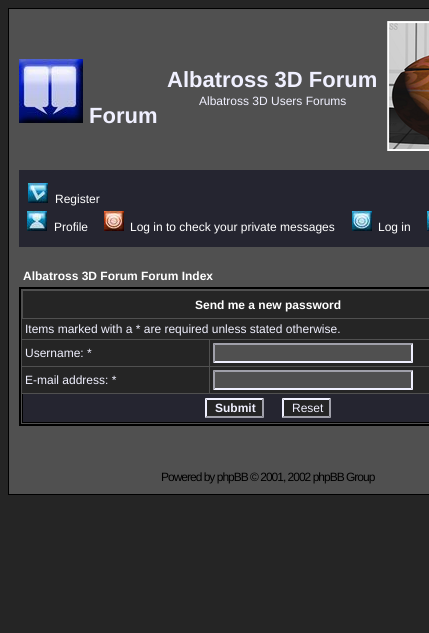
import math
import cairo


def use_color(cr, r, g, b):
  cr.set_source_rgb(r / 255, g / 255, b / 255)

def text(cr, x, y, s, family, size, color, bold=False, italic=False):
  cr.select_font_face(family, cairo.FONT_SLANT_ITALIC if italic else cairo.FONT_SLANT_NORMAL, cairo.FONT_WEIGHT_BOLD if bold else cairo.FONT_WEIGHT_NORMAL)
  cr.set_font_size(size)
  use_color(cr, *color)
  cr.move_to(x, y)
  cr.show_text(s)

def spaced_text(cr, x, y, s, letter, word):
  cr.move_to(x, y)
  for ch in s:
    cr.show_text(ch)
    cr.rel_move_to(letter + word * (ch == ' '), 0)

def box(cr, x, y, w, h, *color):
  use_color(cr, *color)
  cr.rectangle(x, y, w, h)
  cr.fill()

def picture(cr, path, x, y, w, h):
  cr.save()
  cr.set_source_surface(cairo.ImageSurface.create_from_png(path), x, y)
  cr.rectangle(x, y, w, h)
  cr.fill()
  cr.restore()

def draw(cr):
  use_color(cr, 37, 37, 37)
  cr.paint()
  use_color(cr, 80, 80, 80)
  cr.rectangle(8.5, 8.5, 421, 486)
  cr.fill_preserve()
  use_color(cr, 0, 0, 0)
  cr.set_line_width(1)
  cr.stroke()
  picture(cr, "img_01.png", 387, 21, 42, 130)
  picture(cr, "img_02.png", 19, 59, 64, 64)
  box(cr, 19, 170, 410, 77, 37, 37, 48)
  picture(cr, "img_03.png", 28, 183, 20, 20)
  picture(cr, "img_04.png", 27, 211, 20, 20)
  picture(cr, "img_05.png", 104, 211, 20, 20)
  picture(cr, "img_06.png", 352, 211, 20, 20)
  picture(cr, "img_07.png", 427, 211, 2, 20)
  cr.rectangle(20, 288, 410, 137)
  use_color(cr, 0, 0, 0)
  cr.set_line_width(2)
  cr.stroke()
  box(cr, 23, 291, 406, 27, 37, 37, 37)
  box(cr, 22, 319, 407, 20, 37, 37, 37)
  box(cr, 22, 340, 187, 26, 37, 37, 37)
  box(cr, 210, 340, 219, 26, 37, 37, 37)
  box(cr, 213, 343, 200, 20, 80, 80, 80)
  use_color(cr, 160, 160, 170)
  cr.new_path()
  cr.move_to(213, 343)
  cr.line_to(413, 343)
  cr.line_to(411, 345)
  cr.line_to(215, 345)
  cr.close_path()
  cr.fill()
  use_color(cr, 240, 240, 255)
  cr.new_path()
  cr.move_to(413, 343)
  cr.line_to(413, 363)
  cr.line_to(411, 361)
  cr.line_to(411, 345)
  cr.close_path()
  cr.fill()
  cr.new_path()
  cr.move_to(413, 363)
  cr.line_to(213, 363)
  cr.line_to(215, 361)
  cr.line_to(411, 361)
  cr.close_path()
  cr.fill()
  use_color(cr, 160, 160, 170)
  cr.new_path()
  cr.move_to(213, 363)
  cr.line_to(213, 343)
  cr.line_to(215, 345)
  cr.line_to(215, 361)
  cr.close_path()
  cr.fill()
  box(cr, 22, 367, 187, 26, 37, 37, 37)
  box(cr, 210, 367, 219, 26, 37, 37, 37)
  box(cr, 213, 370, 200, 20, 80, 80, 80)
  use_color(cr, 160, 160, 170)
  cr.new_path()
  cr.move_to(213, 370)
  cr.line_to(413, 370)
  cr.line_to(411, 372)
  cr.line_to(215, 372)
  cr.close_path()
  cr.fill()
  use_color(cr, 240, 240, 255)
  cr.new_path()
  cr.move_to(413, 370)
  cr.line_to(413, 390)
  cr.line_to(411, 388)
  cr.line_to(411, 372)
  cr.close_path()
  cr.fill()
  cr.new_path()
  cr.move_to(413, 390)
  cr.line_to(213, 390)
  cr.line_to(215, 388)
  cr.line_to(411, 388)
  cr.close_path()
  cr.fill()
  use_color(cr, 160, 160, 170)
  cr.new_path()
  cr.move_to(213, 390)
  cr.line_to(213, 370)
  cr.line_to(215, 372)
  cr.line_to(215, 388)
  cr.close_path()
  cr.fill()
  box(cr, 23, 394, 406, 28, 37, 37, 48)
  box(cr, 22, 422, 407, 1, 0, 0, 0)
  box(cr, 22, 394, 1, 29, 0, 0, 0)
  box(cr, 205, 398, 59, 20, 37, 37, 37)
  use_color(cr, 240, 240, 255)
  cr.new_path()
  cr.move_to(205, 398)
  cr.line_to(264, 398)
  cr.line_to(262, 400)
  cr.line_to(207, 400)
  cr.close_path()
  cr.fill()
  use_color(cr, 160, 160, 170)
  cr.new_path()
  cr.move_to(264, 398)
  cr.line_to(264, 418)
  cr.line_to(262, 416)
  cr.line_to(262, 400)
  cr.close_path()
  cr.fill()
  cr.new_path()
  cr.move_to(264, 418)
  cr.line_to(205, 418)
  cr.line_to(207, 416)
  cr.line_to(262, 416)
  cr.close_path()
  cr.fill()
  use_color(cr, 240, 240, 255)
  cr.new_path()
  cr.move_to(205, 418)
  cr.line_to(205, 398)
  cr.line_to(207, 400)
  cr.line_to(207, 416)
  cr.close_path()
  cr.fill()
  box(cr, 282, 398, 49, 20, 37, 37, 37)
  use_color(cr, 240, 240, 255)
  cr.new_path()
  cr.move_to(282, 398)
  cr.line_to(331, 398)
  cr.line_to(329, 400)
  cr.line_to(284, 400)
  cr.close_path()
  cr.fill()
  use_color(cr, 160, 160, 170)
  cr.new_path()
  cr.move_to(331, 398)
  cr.line_to(331, 418)
  cr.line_to(329, 416)
  cr.line_to(329, 400)
  cr.close_path()
  cr.fill()
  cr.new_path()
  cr.move_to(331, 418)
  cr.line_to(282, 418)
  cr.line_to(284, 416)
  cr.line_to(329, 416)
  cr.close_path()
  cr.fill()
  use_color(cr, 240, 240, 255)
  cr.new_path()
  cr.move_to(282, 418)
  cr.line_to(282, 398)
  cr.line_to(284, 400)
  cr.line_to(284, 416)
  cr.close_path()
  cr.fill()
  text(cr, 167, 87, "Albatross 3D Forum", "Liberation Sans", 22, (240, 240, 255), bold=True)
  text(cr, 199, 105, "Albatross 3D Users Forums", "Liberation Sans", 12, (240, 240, 255))
  text(cr, 89, 123, "Forum", "Liberation Sans", 22, (240, 240, 255), bold=True)
  text(cr, 55, 203, "Register", "Liberation Sans", 12, (255, 255, 255))
  text(cr, 54, 231, "Profile", "Liberation Sans", 12, (255, 255, 255))
  text(cr, 130, 231, "Log in to check your private messages", "Liberation Sans", 12, (255, 255, 255))
  text(cr, 378, 231, "Log in", "Liberation Sans", 12, (255, 255, 255))
  text(cr, 23, 280, "Albatross 3D Forum Forum Index", "Liberation Sans", 12, (255, 255, 255), bold=True)
  text(cr, 195, 309, "Send me a new password", "Liberation Sans", 12, (255, 255, 255), bold=True)
  text(cr, 25, 333, "Items marked with a * are required unless stated otherwise.", "Liberation Sans", 12, (240, 240, 255))
  text(cr, 25, 357, "Username: *", "Liberation Sans", 12, (240, 240, 255))
  text(cr, 25, 384, "E-mail address: *", "Liberation Sans", 12, (240, 240, 255))
  text(cr, 215, 412, "Submit", "Liberation Sans", 12, (240, 240, 255), bold=True)
  text(cr, 292, 412, "Reset", "Liberation Sans", 12, (240, 240, 255))
  use_color(cr, 0, 0, 0)
  spaced_text(cr, 161, 481, "Powered by phpBB © 2001, 2002 phpBB Group", -1, 0)


surface = cairo.ImageSurface(cairo.FORMAT_RGB24, 429, 633)
cr = cairo.Context(surface)
options = cairo.FontOptions()
options.set_hint_metrics(cairo.HINT_METRICS_OFF)
options.set_hint_style(cairo.HINT_STYLE_NONE)
cr.set_font_options(options)
cr.set_miter_limit(4)
draw(cr)
surface.write_to_png("out.png")
